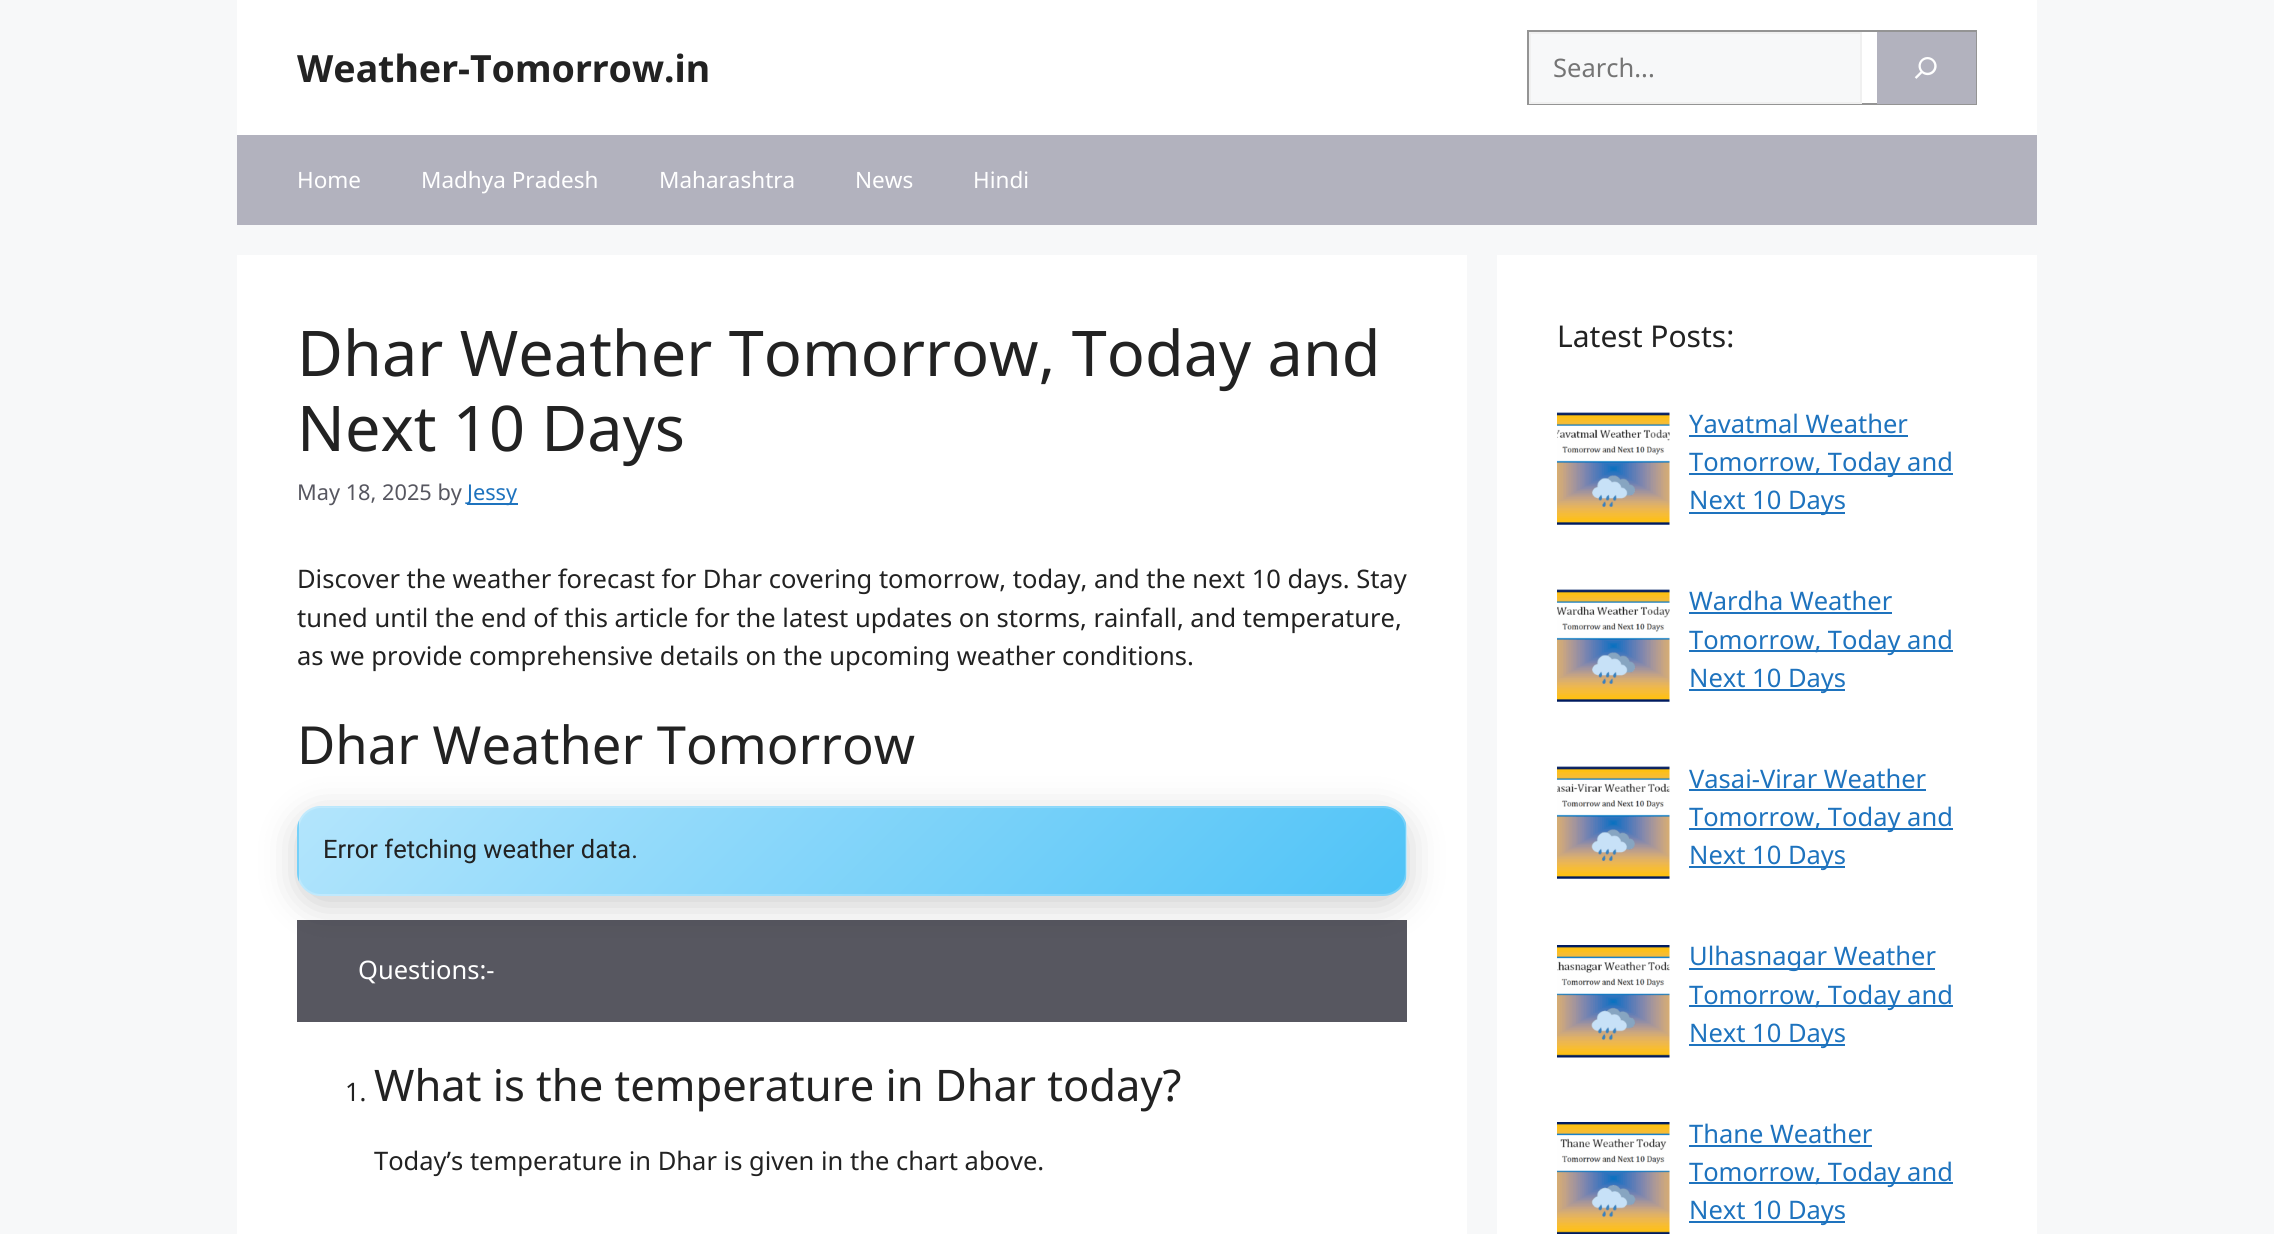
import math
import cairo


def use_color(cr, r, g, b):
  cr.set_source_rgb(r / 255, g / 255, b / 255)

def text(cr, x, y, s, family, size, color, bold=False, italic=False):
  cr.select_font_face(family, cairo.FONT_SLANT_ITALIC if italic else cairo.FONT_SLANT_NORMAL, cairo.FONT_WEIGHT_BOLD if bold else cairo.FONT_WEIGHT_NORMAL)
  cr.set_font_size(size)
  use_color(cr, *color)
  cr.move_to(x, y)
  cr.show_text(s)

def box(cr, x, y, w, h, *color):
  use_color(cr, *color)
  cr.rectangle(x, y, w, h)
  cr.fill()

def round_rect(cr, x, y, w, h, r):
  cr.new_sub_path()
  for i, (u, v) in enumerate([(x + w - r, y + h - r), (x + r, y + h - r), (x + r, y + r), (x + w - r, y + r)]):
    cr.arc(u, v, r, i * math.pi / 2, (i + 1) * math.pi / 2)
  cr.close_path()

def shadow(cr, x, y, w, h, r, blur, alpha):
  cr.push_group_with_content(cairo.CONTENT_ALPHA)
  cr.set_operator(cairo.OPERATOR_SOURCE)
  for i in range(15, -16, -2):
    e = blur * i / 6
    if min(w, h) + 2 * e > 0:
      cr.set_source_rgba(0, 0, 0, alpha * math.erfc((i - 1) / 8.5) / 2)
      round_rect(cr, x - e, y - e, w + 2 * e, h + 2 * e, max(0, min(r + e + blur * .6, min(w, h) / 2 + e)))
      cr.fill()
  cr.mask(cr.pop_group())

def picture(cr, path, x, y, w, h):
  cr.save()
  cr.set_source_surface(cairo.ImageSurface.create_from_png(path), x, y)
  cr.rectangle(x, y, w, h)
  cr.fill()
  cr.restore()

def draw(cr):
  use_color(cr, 247, 248, 249)
  cr.paint()
  box(cr, 237, 0, 1800, 135, 255, 255, 255)
  cr.rectangle(1528, 31, 448, 73)
  use_color(cr, 148, 148, 148)
  cr.stroke()
  use_color(cr, 247, 248, 249)
  cr.rectangle(1530, 33, 331, 70)
  cr.fill_preserve()
  use_color(cr, 240, 240, 240)
  cr.stroke()
  box(cr, 1877, 32, 99, 72, 178, 178, 190)
  picture(cr, "img_01.png", 1914, 57, 23, 22)
  box(cr, 237, 135, 1800, 90, 178, 178, 190)
  box(cr, 237, 255, 1230, 979, 255, 255, 255)
  box(cr, 467, 503, 51, 2, 30, 115, 190)
  box(cr, 297, 920, 1110, 102, 87, 87, 96)
  use_color(cr, 0, 0, 0)
  shadow(cr, 297, 815, 1110, 90, 24, 18, 0.2)
  cr.save()
  round_rect(cr, 297, 806, 1110, 90, 24)
  cr.clip()
  gradient = cairo.LinearGradient(554, 465, 1151, 1062)
  gradient.add_color_stop_rgba(0, 0.702, 0.898, 0.988, 1)
  gradient.add_color_stop_rgba(1, 0.31, 0.765, 0.969, 1)
  cr.set_source(gradient)
  cr.rectangle(314, 806, 1076, 1)
  cr.fill()
  gradient = cairo.LinearGradient(-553, 552, 44, 1149)
  gradient.add_color_stop_rgba(0, 0.702, 0.898, 0.988, 1)
  gradient.add_color_stop_rgba(1, 0.31, 0.765, 0.969, 1)
  cr.set_source(gradient)
  cr.rectangle(297, 820, 2, 62)
  cr.fill()
  gradient = cairo.LinearGradient(554, 552, 1151, 1149)
  gradient.add_color_stop_rgba(0, 0.702, 0.898, 0.988, 1)
  gradient.add_color_stop_rgba(1, 0.31, 0.765, 0.969, 1)
  cr.set_source(gradient)
  cr.rectangle(299, 807, 1107, 87)
  cr.fill()
  gradient = cairo.LinearGradient(1661, 552, 2258, 1149)
  gradient.add_color_stop_rgba(0, 0.702, 0.898, 0.988, 1)
  gradient.add_color_stop_rgba(1, 0.31, 0.765, 0.969, 1)
  cr.set_source(gradient)
  cr.rectangle(1406, 823, 1, 56)
  cr.fill()
  gradient = cairo.LinearGradient(554, 639, 1151, 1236)
  gradient.add_color_stop_rgba(0, 0.702, 0.898, 0.988, 1)
  gradient.add_color_stop_rgba(1, 0.31, 0.765, 0.969, 1)
  cr.set_source(gradient)
  cr.rectangle(311, 894, 1082, 2)
  cr.fill()
  cr.restore()
  round_rect(cr, 298, 807, 1108, 88, 23)
  cr.set_source_rgba(1, 1, 1, 0.2)
  cr.stroke()
  box(cr, 1497, 255, 540, 979, 255, 255, 255)
  picture(cr, "img_02.png", 1557, 412, 113, 113)
  box(cr, 1689, 435, 219, 2, 30, 115, 190)
  box(cr, 1689, 473, 264, 2, 30, 115, 190)
  box(cr, 1689, 512, 156, 2, 30, 115, 190)
  picture(cr, "img_03.png", 1557, 589, 113, 113)
  box(cr, 1689, 612, 203, 2, 30, 115, 190)
  box(cr, 1689, 650, 264, 2, 30, 115, 190)
  box(cr, 1689, 689, 156, 2, 30, 115, 190)
  picture(cr, "img_04.png", 1557, 766, 113, 113)
  box(cr, 1689, 789, 237, 2, 30, 115, 190)
  box(cr, 1689, 828, 264, 2, 30, 115, 190)
  box(cr, 1689, 866, 156, 2, 30, 115, 190)
  picture(cr, "img_05.png", 1557, 945, 113, 113)
  box(cr, 1689, 968, 246, 2, 30, 115, 190)
  box(cr, 1689, 1005, 264, 2, 30, 115, 190)
  box(cr, 1689, 1044, 156, 2, 30, 115, 190)
  picture(cr, "img_06.png", 1557, 1122, 113, 112)
  box(cr, 1689, 1145, 183, 2, 30, 115, 190)
  box(cr, 1689, 1182, 264, 2, 30, 115, 190)
  box(cr, 1689, 1221, 156, 2, 30, 115, 190)
  text(cr, 297, 82, "Weather-Tomorrow.in", "Noto Sans", 37.5, (34, 34, 34), bold=True)
  text(cr, 1553, 77, "Search...", "Noto Sans", 25.5, (117, 117, 117))
  text(cr, 297, 188, "Home", "Noto Sans", 22.5, (255, 255, 255))
  text(cr, 421, 188, "Madhya Pradesh", "Noto Sans", 22.5, (255, 255, 255))
  text(cr, 659, 188, "Maharashtra", "Noto Sans", 22.5, (255, 255, 255))
  text(cr, 855, 188, "News", "Noto Sans", 22.5, (255, 255, 255))
  text(cr, 973, 188, "Hindi", "Noto Sans", 22.5, (255, 255, 255))
  text(cr, 297, 376, "Dhar Weather Tomorrow, Today and", "Noto Sans", 63, (34, 34, 34))
  text(cr, 297, 451, "Next 10 Days", "Noto Sans", 63, (34, 34, 34))
  text(cr, 297, 500, "May 18, 2025 by", "Noto Sans", 21.75, (87, 87, 96))
  text(cr, 467, 500, "Jessy", "Noto Sans", 21.75, (30, 115, 190))
  text(cr, 297, 588, "Discover the weather forecast for Dhar covering tomorrow, today, and the next 10 days. Stay", "Noto Sans", 25.5, (34, 34, 34))
  text(cr, 297, 627, "tuned until the end of this article for the latest updates on storms, rainfall, and temperature,", "Noto Sans", 25.5, (34, 34, 34))
  text(cr, 297, 665, "as we provide comprehensive details on the upcoming weather conditions.", "Noto Sans", 25.5, (34, 34, 34))
  text(cr, 297, 764, "Dhar Weather Tomorrow", "Noto Sans", 52.5, (34, 34, 34))
  text(cr, 323, 858, "Error fetching weather data.", "Roboto", 25.5, (34, 34, 34))
  text(cr, 358, 979, "Questions:-", "Noto Sans", 25.5, (255, 255, 255))
  text(cr, 345, 1101, "1.", "Noto Sans", 25.5, (34, 34, 34))
  text(cr, 374, 1101, "What is the temperature in Dhar today?", "Noto Sans", 43.5, (34, 34, 34))
  text(cr, 374, 1170, "Today’s temperature in Dhar is given in the chart above.", "Noto Sans", 25.5, (34, 34, 34))
  text(cr, 1557, 347, "Latest Posts:", "Noto Sans", 30, (34, 34, 34))
  text(cr, 1689, 433, "Yavatmal Weather", "Noto Sans", 25.5, (30, 115, 190))
  text(cr, 1689, 471, "Tomorrow, Today and", "Noto Sans", 25.5, (30, 115, 190))
  text(cr, 1689, 509, "Next 10 Days", "Noto Sans", 25.5, (30, 115, 190))
  text(cr, 1689, 610, "Wardha Weather", "Noto Sans", 25.5, (30, 115, 190))
  text(cr, 1689, 649, "Tomorrow, Today and", "Noto Sans", 25.5, (30, 115, 190))
  text(cr, 1689, 687, "Next 10 Days", "Noto Sans", 25.5, (30, 115, 190))
  text(cr, 1689, 788, "Vasai-Virar Weather", "Noto Sans", 25.5, (30, 115, 190))
  text(cr, 1689, 826, "Tomorrow, Today and", "Noto Sans", 25.5, (30, 115, 190))
  text(cr, 1689, 864, "Next 10 Days", "Noto Sans", 25.5, (30, 115, 190))
  text(cr, 1689, 965, "Ulhasnagar Weather", "Noto Sans", 25.5, (30, 115, 190))
  text(cr, 1689, 1004, "Tomorrow, Today and", "Noto Sans", 25.5, (30, 115, 190))
  text(cr, 1689, 1042, "Next 10 Days", "Noto Sans", 25.5, (30, 115, 190))
  text(cr, 1689, 1143, "Thane Weather", "Noto Sans", 25.5, (30, 115, 190))
  text(cr, 1689, 1181, "Tomorrow, Today and", "Noto Sans", 25.5, (30, 115, 190))
  text(cr, 1689, 1219, "Next 10 Days", "Noto Sans", 25.5, (30, 115, 190))


surface = cairo.ImageSurface(cairo.FORMAT_RGB24, 2274, 1234)
cr = cairo.Context(surface)
options = cairo.FontOptions()
options.set_hint_metrics(cairo.HINT_METRICS_OFF)
options.set_hint_style(cairo.HINT_STYLE_NONE)
cr.set_font_options(options)
cr.set_miter_limit(4)
draw(cr)
surface.write_to_png("out.png")
